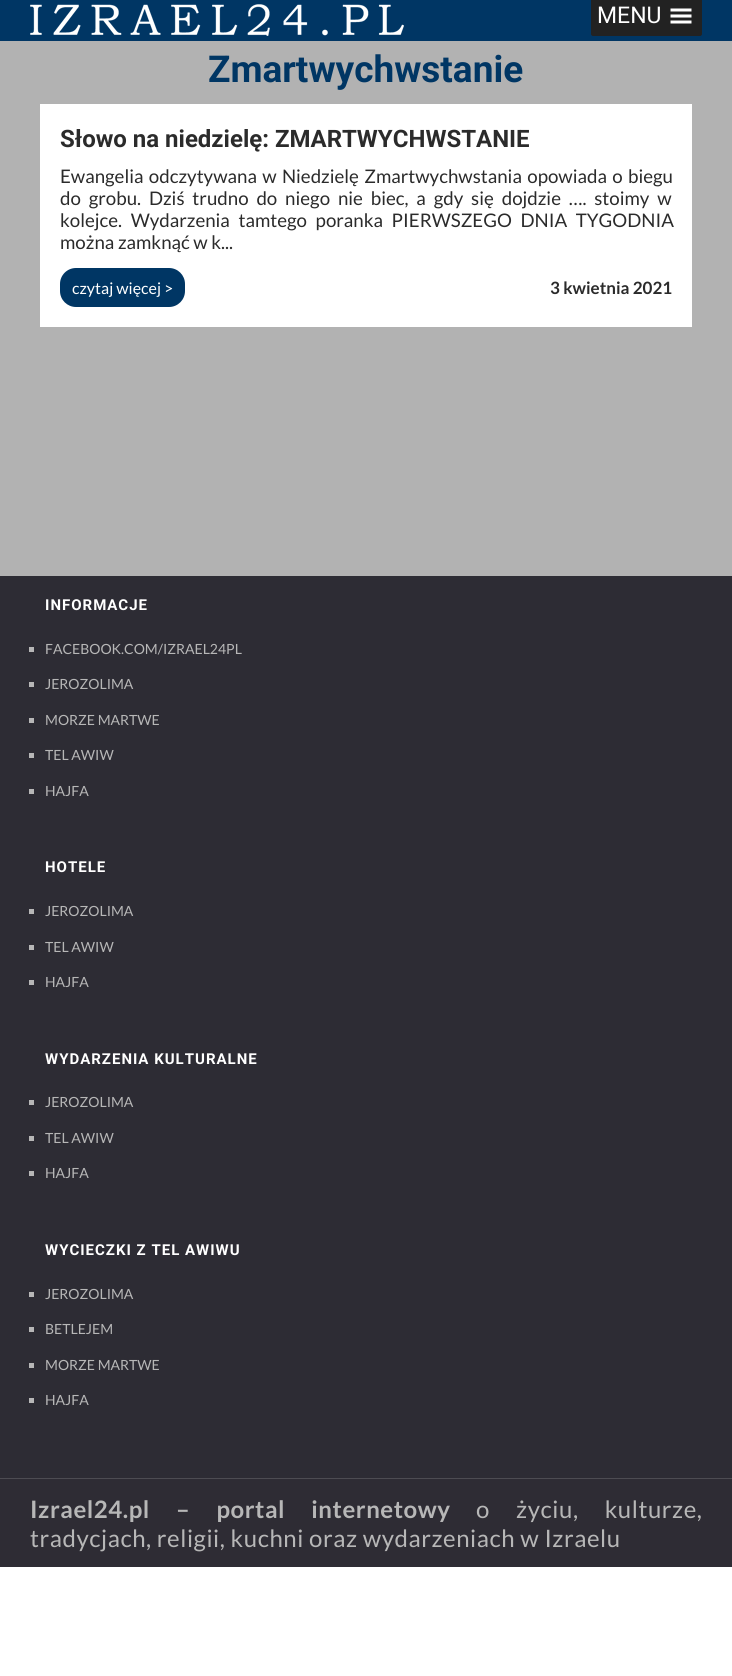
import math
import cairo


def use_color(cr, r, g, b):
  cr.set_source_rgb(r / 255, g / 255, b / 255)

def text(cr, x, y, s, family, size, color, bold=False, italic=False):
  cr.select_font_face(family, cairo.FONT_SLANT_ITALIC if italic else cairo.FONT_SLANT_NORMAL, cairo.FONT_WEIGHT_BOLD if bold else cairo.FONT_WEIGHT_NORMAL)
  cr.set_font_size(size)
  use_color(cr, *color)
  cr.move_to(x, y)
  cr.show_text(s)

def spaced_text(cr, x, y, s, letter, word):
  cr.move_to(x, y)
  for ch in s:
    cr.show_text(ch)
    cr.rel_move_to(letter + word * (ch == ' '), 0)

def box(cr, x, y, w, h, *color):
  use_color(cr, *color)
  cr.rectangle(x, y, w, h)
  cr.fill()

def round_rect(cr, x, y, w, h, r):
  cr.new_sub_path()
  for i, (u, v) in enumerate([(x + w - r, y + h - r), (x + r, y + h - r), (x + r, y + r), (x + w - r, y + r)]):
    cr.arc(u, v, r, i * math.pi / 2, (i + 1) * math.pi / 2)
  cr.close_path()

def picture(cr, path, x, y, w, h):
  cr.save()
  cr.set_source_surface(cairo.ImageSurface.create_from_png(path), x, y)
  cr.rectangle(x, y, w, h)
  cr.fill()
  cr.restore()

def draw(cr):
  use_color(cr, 255, 255, 255)
  cr.paint()
  box(cr, 0, 41, 732, 535, 178, 178, 178)
  box(cr, 0, 0, 732, 41, 0, 54, 100)
  picture(cr, "img_01.png", 30, 4, 374, 32)
  use_color(cr, 34, 34, 34)
  cr.new_path()
  cr.move_to(591, 0)
  cr.line_to(702, 0)
  cr.line_to(702, 34)
  cr.curve_to(702, 35, 701, 36, 700, 36)
  cr.line_to(593, 36)
  cr.curve_to(592, 36, 591, 35, 591, 34)
  cr.close_path()
  cr.fill()
  picture(cr, "img_02.png", 670, 8, 22, 16)
  box(cr, 40, 104, 652, 223, 255, 255, 255)
  use_color(cr, 0, 54, 100)
  round_rect(cr, 60, 268, 125, 39, 16)
  cr.fill()
  box(cr, 0, 576, 732, 902, 45, 44, 52)
  box(cr, 29, 647, 5, 5, 183, 183, 183)
  box(cr, 29, 682, 5, 5, 183, 183, 183)
  box(cr, 29, 718, 5, 5, 183, 183, 183)
  box(cr, 29, 753, 5, 5, 183, 183, 183)
  box(cr, 29, 789, 5, 5, 183, 183, 183)
  box(cr, 29, 909, 5, 5, 183, 183, 183)
  box(cr, 29, 945, 5, 5, 183, 183, 183)
  box(cr, 29, 980, 5, 5, 183, 183, 183)
  box(cr, 29, 1100, 5, 5, 183, 183, 183)
  box(cr, 29, 1136, 5, 5, 183, 183, 183)
  box(cr, 29, 1171, 5, 5, 183, 183, 183)
  box(cr, 29, 1292, 5, 5, 183, 183, 183)
  box(cr, 29, 1327, 5, 5, 183, 183, 183)
  box(cr, 29, 1363, 5, 5, 183, 183, 183)
  box(cr, 29, 1398, 5, 5, 183, 183, 183)
  box(cr, 0, 1479, 732, 88, 46, 44, 52)
  box(cr, 0, 1478, 732, 1, 77, 76, 82)
  text(cr, 597, 23, "MENU", "Roboto", 23, (255, 255, 255))
  text(cr, 208, 82, "Zmartwychwstanie", "Roboto", 37, (0, 54, 100), bold=True)
  text(cr, 60, 147, "Słowo na niedzielę: ZMARTWYCHWSTANIE", "Roboto", 24, (43, 43, 43), bold=True)
  cr.select_font_face("Lato")
  cr.set_font_size(18.7)
  spaced_text(cr, 60, 183, "Ewangelia odczytywana w Niedzielę Zmartwychwstania opowiada o biegu", 0, 1.75)
  spaced_text(cr, 60, 205, "do grobu. Dziś trudno do niego nie biec, a gdy się dojdzie …. stoimy w", 0, 4.25)
  spaced_text(cr, 60, 227, "kolejce. Wydarzenia tamtego poranka PIERWSZEGO DNIA TYGODNIA", 0, 5)
  text(cr, 60, 249, "można zamknąć w k...", "Lato", 18.7, (43, 43, 43))
  text(cr, 72, 294, "czytaj więcej >", "Lato", 16, (255, 255, 255))
  text(cr, 550, 294, "3 kwietnia 2021", "Lato", 17, (43, 43, 43), bold=True)
  cr.select_font_face("Roboto", cairo.FONT_SLANT_NORMAL, cairo.FONT_WEIGHT_BOLD)
  cr.set_font_size(15)
  use_color(cr, 255, 255, 255)
  spaced_text(cr, 45, 610, "INFORMACJE", 1, 0)
  text(cr, 45, 654, "FACEBOOK.COM/IZRAEL24PL", "Lato", 14, (183, 183, 183))
  text(cr, 45, 689, "JEROZOLIMA", "Lato", 14, (183, 183, 183))
  text(cr, 45, 725, "MORZE MARTWE", "Lato", 14, (183, 183, 183))
  text(cr, 45, 760, "TEL AWIW", "Lato", 14, (183, 183, 183))
  text(cr, 45, 796, "HAJFA", "Lato", 14, (183, 183, 183))
  cr.select_font_face("Roboto", cairo.FONT_SLANT_NORMAL, cairo.FONT_WEIGHT_BOLD)
  cr.set_font_size(15)
  use_color(cr, 255, 255, 255)
  spaced_text(cr, 45, 872, "HOTELE", 1, 0)
  text(cr, 45, 916, "JEROZOLIMA", "Lato", 14, (183, 183, 183))
  text(cr, 45, 952, "TEL AWIW", "Lato", 14, (183, 183, 183))
  text(cr, 45, 987, "HAJFA", "Lato", 14, (183, 183, 183))
  cr.select_font_face("Roboto", cairo.FONT_SLANT_NORMAL, cairo.FONT_WEIGHT_BOLD)
  cr.set_font_size(15)
  use_color(cr, 255, 255, 255)
  spaced_text(cr, 45, 1064, "WYDARZENIA KULTURALNE", 1, 0)
  text(cr, 45, 1107, "JEROZOLIMA", "Lato", 14, (183, 183, 183))
  text(cr, 45, 1143, "TEL AWIW", "Lato", 14, (183, 183, 183))
  text(cr, 45, 1178, "HAJFA", "Lato", 14, (183, 183, 183))
  cr.select_font_face("Roboto", cairo.FONT_SLANT_NORMAL, cairo.FONT_WEIGHT_BOLD)
  cr.set_font_size(15)
  use_color(cr, 255, 255, 255)
  spaced_text(cr, 45, 1255, "WYCIECZKI Z TEL AWIWU", 1, 0)
  text(cr, 45, 1299, "JEROZOLIMA", "Lato", 14, (183, 183, 183))
  text(cr, 45, 1334, "BETLEJEM", "Lato", 14, (183, 183, 183))
  text(cr, 45, 1370, "MORZE MARTWE", "Lato", 14, (183, 183, 183))
  text(cr, 45, 1405, "HAJFA", "Lato", 14, (183, 183, 183))
  cr.select_font_face("Lato", cairo.FONT_SLANT_NORMAL, cairo.FONT_WEIGHT_BOLD)
  cr.set_font_size(24)
  spaced_text(cr, 30, 1518, "Izrael24.pl – portal internetowy", 0.55, 21)
  cr.select_font_face("Lato")
  spaced_text(cr, 476, 1518, "o życiu, kulturze,", 0.55, 21)
  spaced_text(cr, 30, 1547, "tradycjach, religii, kuchni oraz wydarzeniach w Izraelu", 0.55, 0)


surface = cairo.ImageSurface(cairo.FORMAT_RGB24, 732, 1676)
cr = cairo.Context(surface)
options = cairo.FontOptions()
options.set_hint_metrics(cairo.HINT_METRICS_OFF)
options.set_hint_style(cairo.HINT_STYLE_NONE)
cr.set_font_options(options)
cr.set_miter_limit(4)
draw(cr)
surface.write_to_png("out.png")
